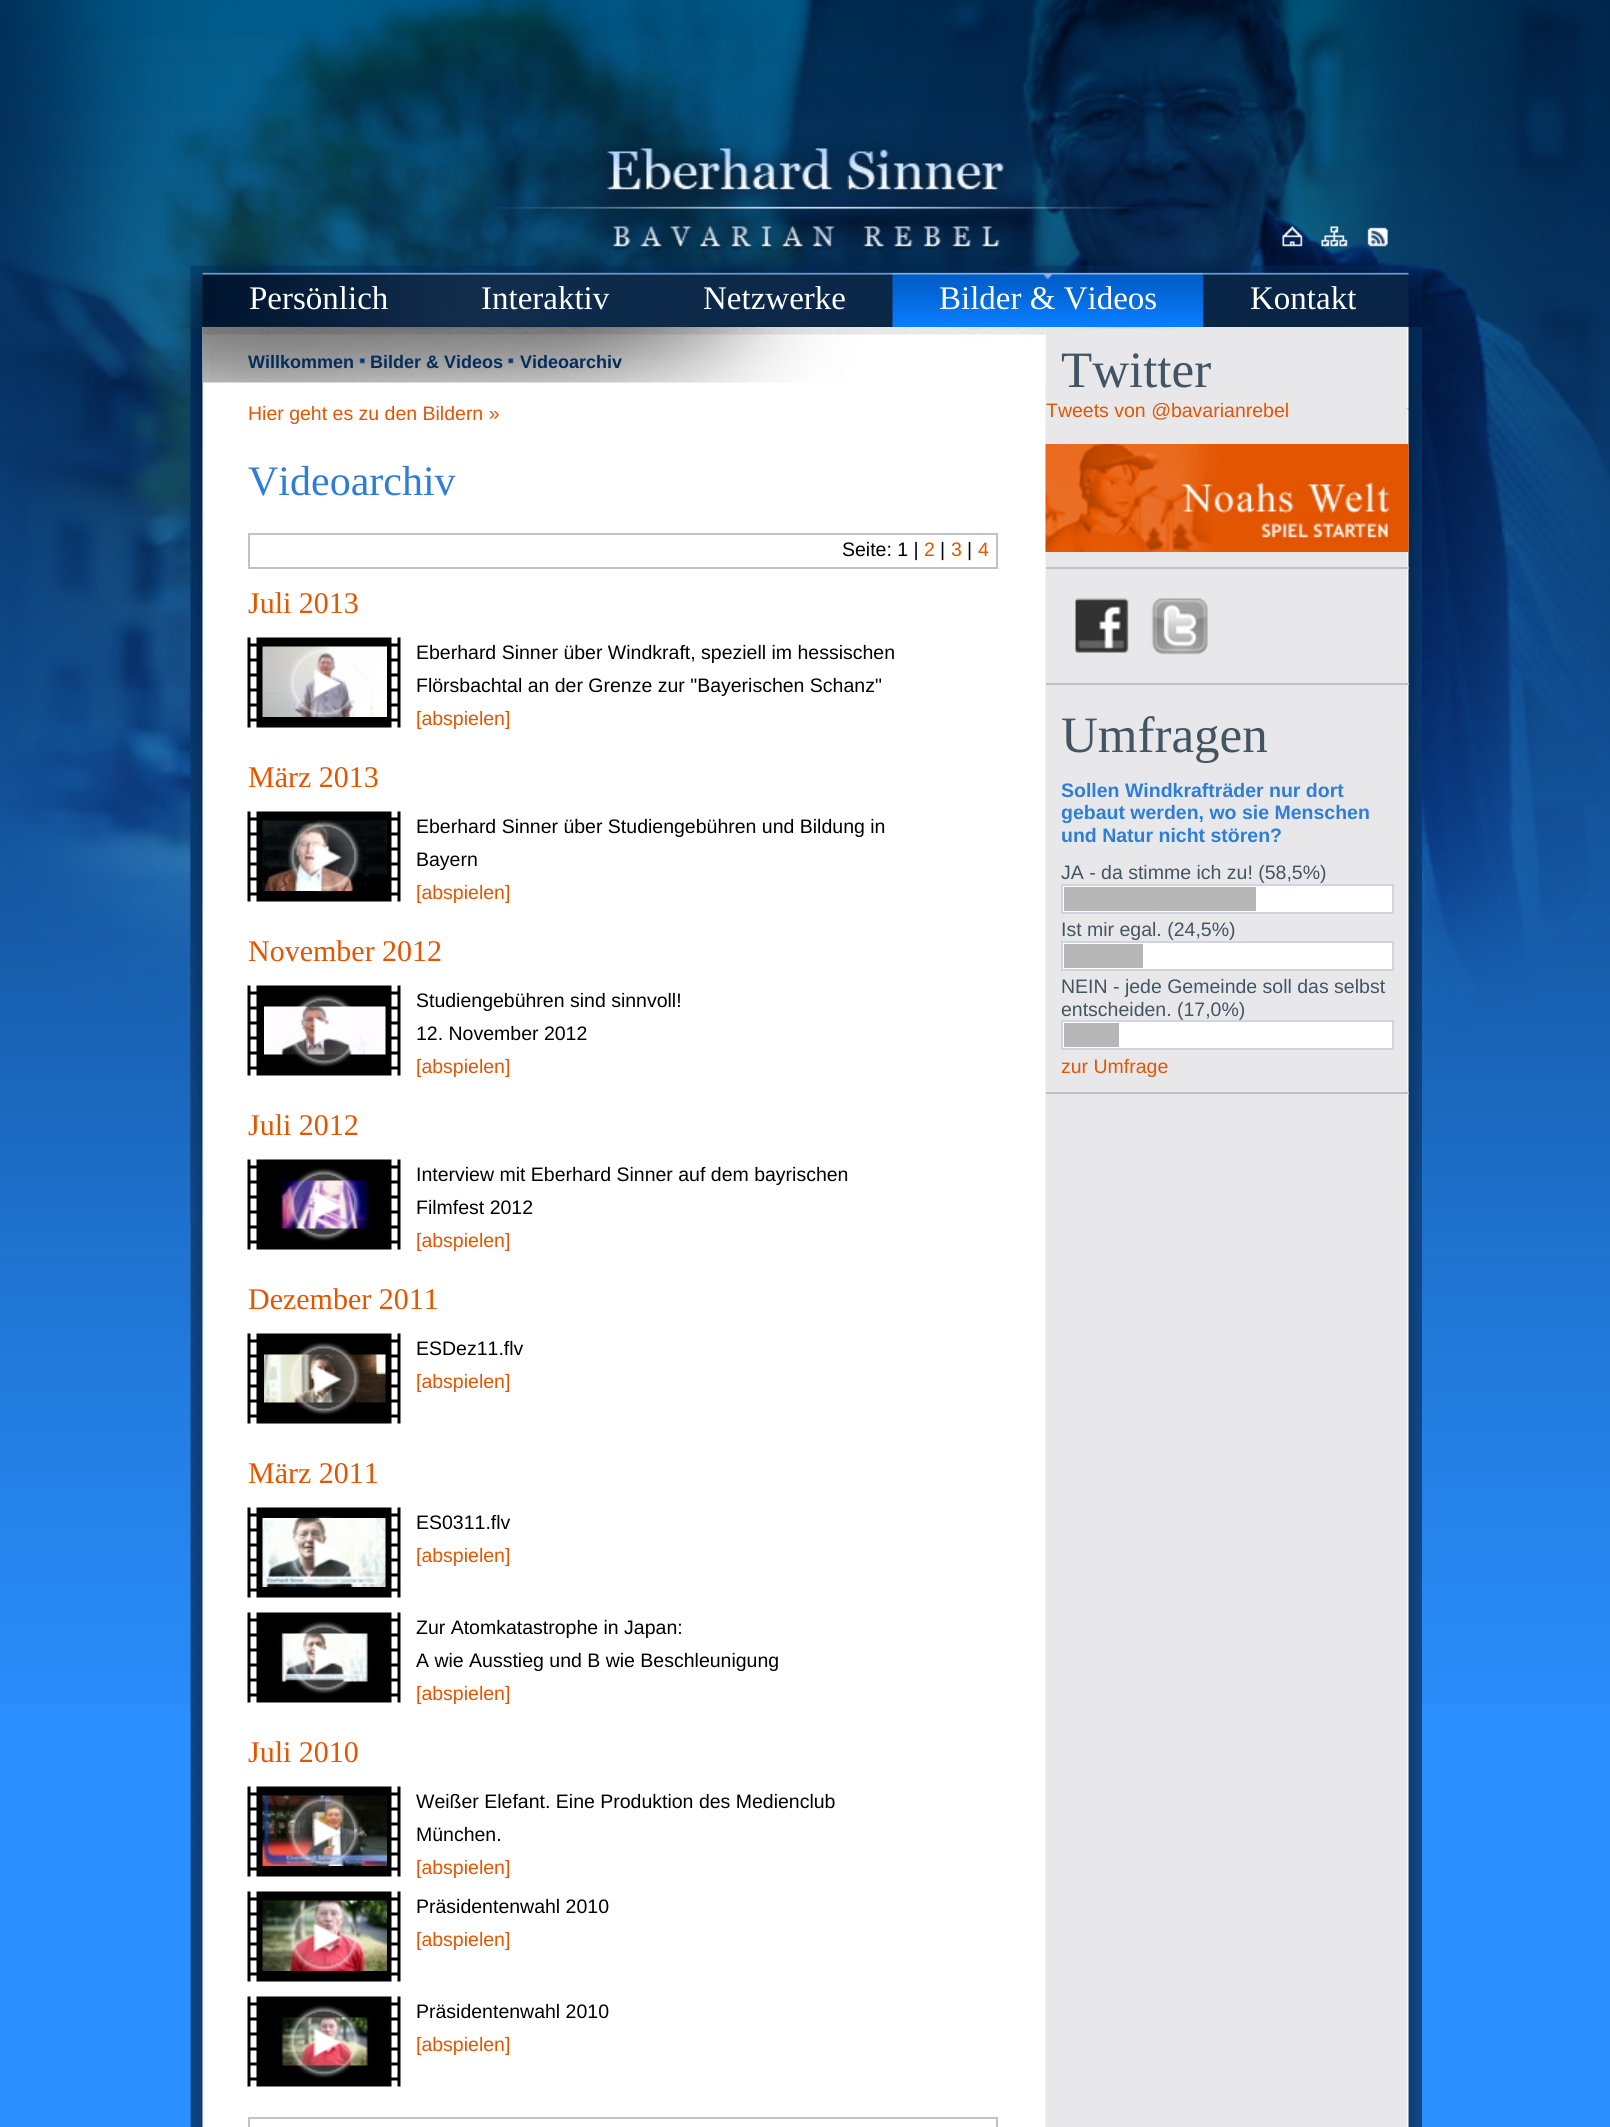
import math
import cairo


def use_color(cr, r, g, b):
  cr.set_source_rgb(r / 255, g / 255, b / 255)

def text(cr, x, y, s, family, size, color, bold=False, italic=False):
  cr.select_font_face(family, cairo.FONT_SLANT_ITALIC if italic else cairo.FONT_SLANT_NORMAL, cairo.FONT_WEIGHT_BOLD if bold else cairo.FONT_WEIGHT_NORMAL)
  cr.set_font_size(size)
  use_color(cr, *color)
  cr.move_to(x, y)
  cr.show_text(s)

def box(cr, x, y, w, h, *color):
  use_color(cr, *color)
  cr.rectangle(x, y, w, h)
  cr.fill()

def picture(cr, path, x, y, w, h):
  cr.save()
  cr.set_source_surface(cairo.ImageSurface.create_from_png(path), x, y)
  cr.rectangle(x, y, w, h)
  cr.fill()
  cr.restore()

def draw(cr):
  use_color(cr, 42, 143, 255)
  cr.paint()
  picture(cr, "img_01.png", 0, 0, 1610, 1705)
  picture(cr, "img_02.png", 131, 0, 1350, 329)
  picture(cr, "img_03.png", 1282, 226, 21, 21)
  picture(cr, "img_04.png", 1321, 226, 27, 21)
  picture(cr, "img_05.png", 1367, 227, 21, 20)
  picture(cr, "img_06.png", 892, 273, 311, 54)
  picture(cr, "img_07.png", 190, 327, 1232, 1800)
  picture(cr, "img_08.png", 190, 327, 1232, 894)
  picture(cr, "img_09.png", 202, 327, 844, 56)
  picture(cr, "img_10.png", 359, 358, 6, 6)
  picture(cr, "img_11.png", 508, 358, 6, 6)
  cr.rectangle(249, 534, 748, 34)
  use_color(cr, 191, 194, 199)
  cr.stroke()
  picture(cr, "img_12.png", 247, 637, 154, 91)
  picture(cr, "img_13.png", 262, 646, 125, 71)
  picture(cr, "img_14.png", 288, 646, 66, 73)
  picture(cr, "img_12.png", 247, 811, 154, 91)
  picture(cr, "img_15.png", 262, 820, 125, 71)
  picture(cr, "img_16.png", 287, 820, 74, 73)
  picture(cr, "img_12.png", 247, 985, 154, 91)
  picture(cr, "img_18.png", 264, 1006, 122, 49)
  picture(cr, "img_17.png", 291, 994, 61, 73)
  picture(cr, "img_12.png", 247, 1159, 154, 91)
  picture(cr, "img_20.png", 264, 1180, 106, 49)
  picture(cr, "img_19.png", 288, 1168, 73, 73)
  picture(cr, "img_12.png", 247, 1333, 154, 91)
  picture(cr, "img_22.png", 264, 1354, 122, 49)
  picture(cr, "img_21.png", 289, 1342, 72, 73)
  picture(cr, "img_12.png", 247, 1507, 154, 91)
  picture(cr, "img_24.png", 262, 1518, 124, 69)
  picture(cr, "img_23.png", 289, 1516, 68, 73)
  picture(cr, "img_12.png", 247, 1612, 154, 91)
  picture(cr, "img_26.png", 278, 1633, 93, 49)
  picture(cr, "img_25.png", 289, 1621, 69, 73)
  picture(cr, "img_12.png", 247, 1786, 154, 91)
  picture(cr, "img_27.png", 262, 1795, 125, 71)
  picture(cr, "img_28.png", 287, 1795, 74, 73)
  picture(cr, "img_12.png", 247, 1891, 154, 91)
  picture(cr, "img_29.png", 262, 1900, 125, 71)
  picture(cr, "img_30.png", 288, 1900, 72, 73)
  picture(cr, "img_12.png", 247, 1996, 154, 91)
  picture(cr, "img_32.png", 274, 2017, 98, 49)
  picture(cr, "img_31.png", 287, 2005, 73, 73)
  cr.rectangle(249, 2118, 748, 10)
  cr.stroke()
  box(cr, 1046, 567, 363, 2, 191, 194, 199)
  picture(cr, "img_33.png", 1045, 444, 364, 108)
  box(cr, 1046, 683, 363, 2, 191, 194, 199)
  picture(cr, "img_34.png", 1075, 598, 54, 55)
  picture(cr, "img_35.png", 1151, 598, 57, 57)
  box(cr, 1046, 1092, 363, 2, 191, 194, 199)
  use_color(cr, 255, 255, 255)
  cr.rectangle(1062, 885, 331, 28)
  cr.fill_preserve()
  use_color(cr, 207, 212, 224)
  cr.stroke()
  box(cr, 1064, 887, 192, 24, 182, 182, 182)
  use_color(cr, 255, 255, 255)
  cr.rectangle(1062, 942, 331, 28)
  cr.fill_preserve()
  use_color(cr, 207, 212, 224)
  cr.stroke()
  box(cr, 1064, 944, 79, 24, 182, 182, 182)
  use_color(cr, 255, 255, 255)
  cr.rectangle(1062, 1021, 331, 28)
  cr.fill_preserve()
  use_color(cr, 207, 212, 224)
  cr.stroke()
  box(cr, 1064, 1023, 55, 24, 182, 182, 182)
  text(cr, 249, 309, "Persönlich", "Liberation Serif", 33, (255, 255, 255))
  text(cr, 481, 309, "Interaktiv", "Liberation Serif", 33, (255, 255, 255))
  text(cr, 703, 309, "Netzwerke", "Liberation Serif", 33, (255, 255, 255))
  text(cr, 939, 309, "Bilder & Videos", "Liberation Serif", 33, (255, 255, 255))
  text(cr, 1250, 309, "Kontakt", "Liberation Serif", 33, (255, 255, 255))
  text(cr, 248, 368, "Willkommen", "Liberation Sans", 18, (4, 45, 91), bold=True)
  text(cr, 370, 368, "Bilder & Videos", "Liberation Sans", 18, (4, 45, 91), bold=True)
  text(cr, 520, 368, "Videoarchiv", "Liberation Sans", 18, (4, 45, 91), bold=True)
  text(cr, 248, 420, "Hier geht es zu den Bildern »", "Liberation Sans", 19.5, (227, 85, 0))
  text(cr, 248, 495, "Videoarchiv", "Liberation Serif", 42, (46, 126, 215))
  text(cr, 842, 556, "Seite: 1 |", "Liberation Sans", 19.5, (0, 0, 0))
  text(cr, 924, 556, "2", "Liberation Sans", 19.5, (227, 85, 0))
  text(cr, 940, 556, "|", "Liberation Sans", 19.5, (0, 0, 0))
  text(cr, 951, 556, "3", "Liberation Sans", 19.5, (227, 85, 0))
  text(cr, 967, 556, "|", "Liberation Sans", 19.5, (0, 0, 0))
  text(cr, 978, 556, "4", "Liberation Sans", 19.5, (227, 85, 0))
  text(cr, 248, 613, "Juli 2013", "Liberation Serif", 30, (227, 85, 0))
  text(cr, 416, 659, "Eberhard Sinner über Windkraft, speziell im hessischen", "Liberation Sans", 19.5, (0, 0, 0))
  text(cr, 416, 692, "Flörsbachtal an der Grenze zur \"Bayerischen Schanz\"", "Liberation Sans", 19.5, (0, 0, 0))
  text(cr, 416, 725, "[abspielen]", "Liberation Sans", 19.5, (227, 85, 0))
  text(cr, 248, 787, "März 2013", "Liberation Serif", 30, (227, 85, 0))
  text(cr, 416, 833, "Eberhard Sinner über Studiengebühren und Bildung in", "Liberation Sans", 19.5, (0, 0, 0))
  text(cr, 416, 866, "Bayern", "Liberation Sans", 19.5, (0, 0, 0))
  text(cr, 416, 899, "[abspielen]", "Liberation Sans", 19.5, (227, 85, 0))
  text(cr, 248, 961, "November 2012", "Liberation Serif", 30, (227, 85, 0))
  text(cr, 416, 1007, "Studiengebühren sind sinnvoll!", "Liberation Sans", 19.5, (0, 0, 0))
  text(cr, 416, 1040, "12. November 2012", "Liberation Sans", 19.5, (0, 0, 0))
  text(cr, 416, 1073, "[abspielen]", "Liberation Sans", 19.5, (227, 85, 0))
  text(cr, 248, 1135, "Juli 2012", "Liberation Serif", 30, (227, 85, 0))
  text(cr, 416, 1181, "Interview mit Eberhard Sinner auf dem bayrischen", "Liberation Sans", 19.5, (0, 0, 0))
  text(cr, 416, 1214, "Filmfest 2012", "Liberation Sans", 19.5, (0, 0, 0))
  text(cr, 416, 1247, "[abspielen]", "Liberation Sans", 19.5, (227, 85, 0))
  text(cr, 248, 1309, "Dezember 2011", "Liberation Serif", 30, (227, 85, 0))
  text(cr, 416, 1355, "ESDez11.flv", "Liberation Sans", 19.5, (0, 0, 0))
  text(cr, 416, 1388, "[abspielen]", "Liberation Sans", 19.5, (227, 85, 0))
  text(cr, 248, 1483, "März 2011", "Liberation Serif", 30, (227, 85, 0))
  text(cr, 416, 1529, "ES0311.flv", "Liberation Sans", 19.5, (0, 0, 0))
  text(cr, 416, 1562, "[abspielen]", "Liberation Sans", 19.5, (227, 85, 0))
  text(cr, 416, 1634, "Zur Atomkatastrophe in Japan:", "Liberation Sans", 19.5, (0, 0, 0))
  text(cr, 416, 1667, "A wie Ausstieg und B wie Beschleunigung", "Liberation Sans", 19.5, (0, 0, 0))
  text(cr, 416, 1700, "[abspielen]", "Liberation Sans", 19.5, (227, 85, 0))
  text(cr, 248, 1762, "Juli 2010", "Liberation Serif", 30, (227, 85, 0))
  text(cr, 416, 1808, "Weißer Elefant. Eine Produktion des Medienclub", "Liberation Sans", 19.5, (0, 0, 0))
  text(cr, 416, 1841, "München.", "Liberation Sans", 19.5, (0, 0, 0))
  text(cr, 416, 1874, "[abspielen]", "Liberation Sans", 19.5, (227, 85, 0))
  text(cr, 416, 1913, "Präsidentenwahl 2010", "Liberation Sans", 19.5, (0, 0, 0))
  text(cr, 416, 1946, "[abspielen]", "Liberation Sans", 19.5, (227, 85, 0))
  text(cr, 416, 2018, "Präsidentenwahl 2010", "Liberation Sans", 19.5, (0, 0, 0))
  text(cr, 416, 2051, "[abspielen]", "Liberation Sans", 19.5, (227, 85, 0))
  text(cr, 1061, 387, "Twitter", "Liberation Serif", 51, (66, 85, 99))
  text(cr, 1046, 417, "Tweets von @bavarianrebel", "Liberation Sans", 19.5, (227, 85, 0))
  text(cr, 1061, 752, "Umfragen", "Liberation Serif", 51, (66, 85, 99))
  text(cr, 1061, 797, "Sollen Windkrafträder nur dort", "Liberation Sans", 19.5, (46, 126, 215), bold=True)
  text(cr, 1061, 819, "gebaut werden, wo sie Menschen", "Liberation Sans", 19.5, (46, 126, 215), bold=True)
  text(cr, 1061, 842, "und Natur nicht stören?", "Liberation Sans", 19.5, (46, 126, 215), bold=True)
  text(cr, 1061, 879, "JA - da stimme ich zu! (58,5%)", "Liberation Sans", 19.5, (66, 85, 99))
  text(cr, 1061, 936, "Ist mir egal. (24,5%)", "Liberation Sans", 19.5, (66, 85, 99))
  text(cr, 1061, 993, "NEIN - jede Gemeinde soll das selbst", "Liberation Sans", 19.5, (66, 85, 99))
  text(cr, 1061, 1016, "entscheiden. (17,0%)", "Liberation Sans", 19.5, (66, 85, 99))
  text(cr, 1061, 1073, "zur Umfrage", "Liberation Sans", 19.5, (227, 85, 0))


surface = cairo.ImageSurface(cairo.FORMAT_RGB24, 1610, 2127)
cr = cairo.Context(surface)
options = cairo.FontOptions()
options.set_hint_metrics(cairo.HINT_METRICS_OFF)
options.set_hint_style(cairo.HINT_STYLE_NONE)
cr.set_font_options(options)
cr.set_miter_limit(4)
draw(cr)
surface.write_to_png("out.png")
